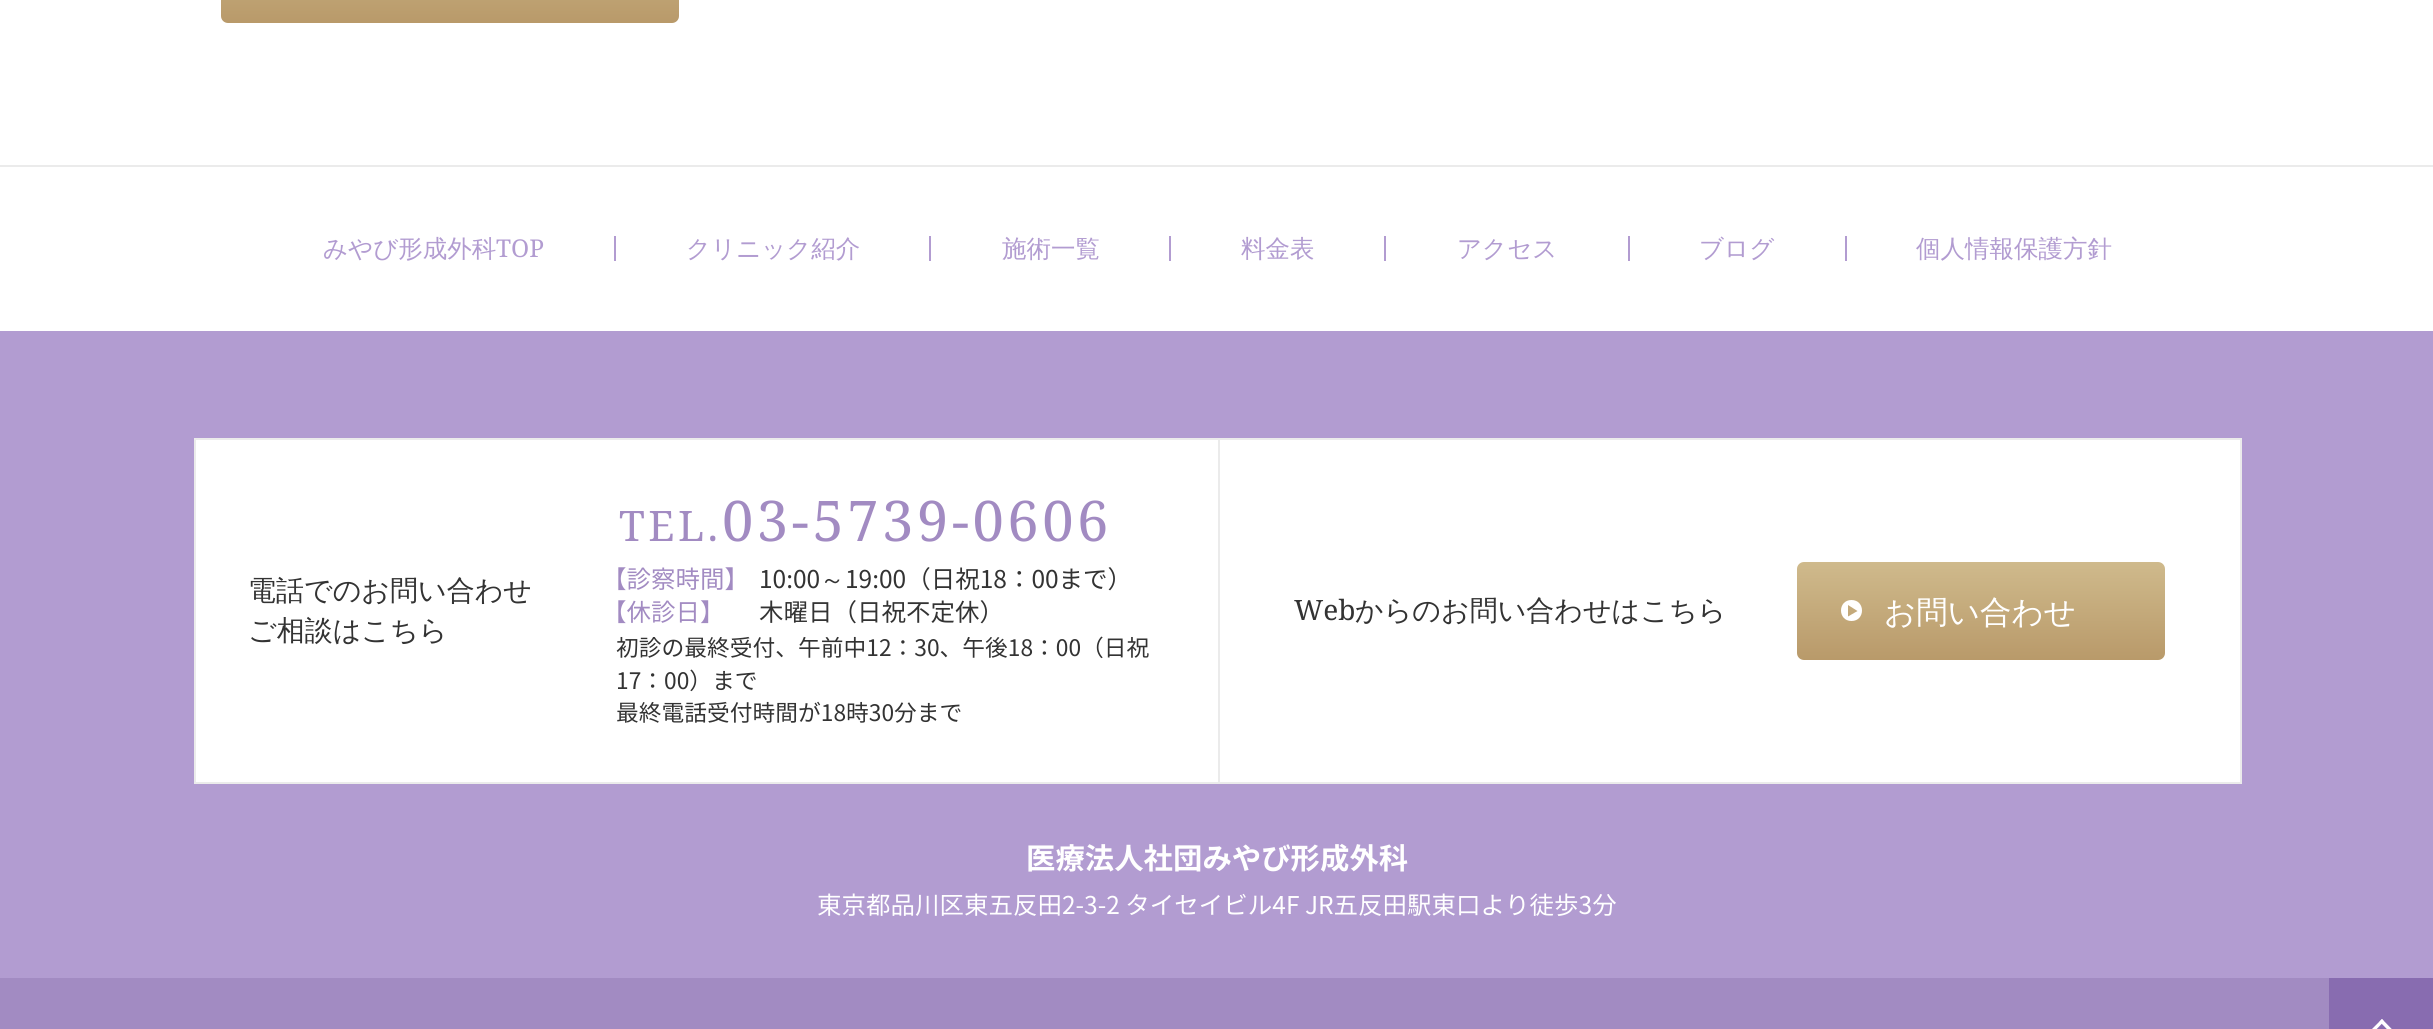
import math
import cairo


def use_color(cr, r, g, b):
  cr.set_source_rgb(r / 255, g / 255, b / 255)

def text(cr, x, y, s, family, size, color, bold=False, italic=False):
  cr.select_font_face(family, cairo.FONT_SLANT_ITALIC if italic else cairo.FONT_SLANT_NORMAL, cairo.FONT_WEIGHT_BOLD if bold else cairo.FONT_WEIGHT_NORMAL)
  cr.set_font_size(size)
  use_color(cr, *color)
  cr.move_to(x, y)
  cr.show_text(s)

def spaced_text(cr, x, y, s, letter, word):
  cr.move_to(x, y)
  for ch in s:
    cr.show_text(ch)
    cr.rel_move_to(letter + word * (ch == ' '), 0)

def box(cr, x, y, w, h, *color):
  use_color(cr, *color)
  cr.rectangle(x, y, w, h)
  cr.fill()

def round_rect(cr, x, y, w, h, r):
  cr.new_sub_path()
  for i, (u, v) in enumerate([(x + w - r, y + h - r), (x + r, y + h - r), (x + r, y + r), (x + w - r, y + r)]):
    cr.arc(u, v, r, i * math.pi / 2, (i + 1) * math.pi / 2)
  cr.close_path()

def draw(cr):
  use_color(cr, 255, 255, 255)
  cr.paint()
  gradient = cairo.LinearGradient(450, -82, 450, 23)
  gradient.add_color_stop_rgba(0, 0.812, 0.729, 0.549, 1)
  gradient.add_color_stop_rgba(0.99, 0.725, 0.604, 0.416, 1)
  cr.set_source(gradient)
  round_rect(cr, 221, -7, 458, 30, 7)
  cr.fill()
  box(cr, 0, 165, 2433, 2, 235, 235, 235)
  box(cr, 614, 236, 2, 25, 178, 156, 209)
  box(cr, 929, 236, 2, 25, 178, 156, 209)
  box(cr, 1169, 236, 2, 25, 178, 156, 209)
  box(cr, 1384, 236, 2, 25, 178, 156, 209)
  box(cr, 1628, 236, 2, 25, 178, 156, 209)
  box(cr, 1845, 236, 2, 25, 178, 156, 209)
  box(cr, 0, 331, 2433, 647, 178, 156, 209)
  use_color(cr, 255, 255, 255)
  cr.rectangle(195, 439, 2046, 344)
  cr.fill_preserve()
  use_color(cr, 235, 235, 235)
  cr.stroke()
  box(cr, 1218, 439, 2, 343, 235, 235, 235)
  gradient = cairo.LinearGradient(1981, 562, 1981, 660)
  gradient.add_color_stop_rgba(0, 0.812, 0.729, 0.549, 1)
  gradient.add_color_stop_rgba(0.99, 0.725, 0.604, 0.416, 1)
  cr.set_source(gradient)
  round_rect(cr, 1797, 562, 368, 98, 7)
  cr.fill()
  use_color(cr, 255, 255, 255)
  cr.set_fill_rule(cairo.FILL_RULE_EVEN_ODD)
  cr.new_path()
  cr.move_to(1851.5, 621)
  cr.curve_to(1837.5, 621, 1837.5, 600, 1851.5, 600)
  cr.curve_to(1865.5, 600, 1865.5, 621, 1851.5, 621)
  cr.close_path()
  cr.move_to(1848, 605)
  cr.line_to(1848, 616.5)
  cr.line_to(1857.5, 611)
  cr.close_path()
  cr.fill()
  box(cr, 0, 978, 2329, 51, 162, 139, 194)
  box(cr, 2329, 978, 104, 51, 136, 108, 176)
  use_color(cr, 255, 255, 255)
  cr.set_fill_rule(cairo.FILL_RULE_WINDING)
  cr.new_path()
  cr.move_to(2364.5, 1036.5)
  cr.line_to(2382, 1019)
  cr.line_to(2384, 1021.5)
  cr.line_to(2367, 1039)
  cr.close_path()
  cr.fill()
  cr.new_path()
  cr.move_to(2379.5, 1021.5)
  cr.line_to(2382, 1019)
  cr.line_to(2399, 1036.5)
  cr.line_to(2396.5, 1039)
  cr.close_path()
  cr.fill()
  text(cr, 323, 257, "みやび形成外科", "WenQuanYi Zen Hei Medium", 24.5, (178, 156, 209))
  text(cr, 496, 257, "TOP", "Noto Serif", 24.5, (178, 156, 209))
  text(cr, 686, 257, "クリニック紹介", "WenQuanYi Zen Hei Medium", 24.5, (178, 156, 209))
  text(cr, 1002, 257, "施術一覧", "WenQuanYi Zen Hei Medium", 24.5, (178, 156, 209))
  text(cr, 1241, 257, "料金表", "WenQuanYi Zen Hei Medium", 24.5, (178, 156, 209))
  text(cr, 1457, 257, "アクセス", "WenQuanYi Zen Hei Medium", 24.5, (178, 156, 209))
  text(cr, 1699, 257, "ブログ", "WenQuanYi Zen Hei Medium", 24.5, (178, 156, 209))
  text(cr, 1916, 257, "個人情報保護方針", "WenQuanYi Zen Hei Medium", 24.5, (178, 156, 209))
  text(cr, 248, 600, "電話でのお問い合わせ", "WenQuanYi Zen Hei Medium", 28, (51, 51, 51))
  text(cr, 248, 640, "ご相談はこちら", "WenQuanYi Zen Hei Medium", 28, (51, 51, 51))
  cr.select_font_face("Noto Serif")
  cr.set_font_size(42)
  use_color(cr, 162, 139, 194)
  spaced_text(cr, 619, 541, "TEL.", 3.5, 0)
  cr.set_font_size(56)
  spaced_text(cr, 722, 541, "03-5739-0606", 3.5, 0)
  text(cr, 602, 588, "【診察時間】", "Noto Sans JP", 24.5, (162, 139, 194))
  text(cr, 759, 588, "10:00", "Noto Sans JP", 24.5, (51, 51, 51))
  text(cr, 820, 588, "～", "WenQuanYi Zen Hei Medium", 24.5, (51, 51, 51))
  text(cr, 845, 588, "19:00（日祝18：00まで）", "Noto Sans JP", 24.5, (51, 51, 51))
  text(cr, 602, 621, "【休診日】", "Noto Sans JP", 24.5, (162, 139, 194))
  text(cr, 759, 621, "木曜日（日祝不定休）", "Noto Sans JP", 24.5, (51, 51, 51))
  text(cr, 616, 656, "初診の最終受付、午前中12：30、午後18：00（日祝", "Noto Sans JP", 22.75, (51, 51, 51))
  text(cr, 616, 689, "17：00）まで", "Noto Sans JP", 22.75, (51, 51, 51))
  text(cr, 616, 721, "最終電話受付時間が18時30分まで", "Noto Sans JP", 22.75, (51, 51, 51))
  text(cr, 1294, 620, "Web", "Noto Serif", 28, (51, 51, 51))
  text(cr, 1355, 620, "からのお問い合わせはこちら", "WenQuanYi Zen Hei Medium", 28, (51, 51, 51))
  text(cr, 1884, 623, "お問い合わせ", "WenQuanYi Zen Hei Medium", 31.5, (255, 255, 255))
  text(cr, 1026, 869, "医療法人社団みやび形成外科", "Noto Sans JP", 29.4, (255, 255, 255), bold=True)
  text(cr, 817, 914, "東京都品川区東五反田2-3-2 タイセイビル4F JR五反田駅東口より徒歩3分", "Noto Sans JP", 24.5, (255, 255, 255))


surface = cairo.ImageSurface(cairo.FORMAT_RGB24, 2433, 1029)
cr = cairo.Context(surface)
options = cairo.FontOptions()
options.set_hint_metrics(cairo.HINT_METRICS_OFF)
options.set_hint_style(cairo.HINT_STYLE_NONE)
cr.set_font_options(options)
cr.set_miter_limit(4)
draw(cr)
surface.write_to_png("out.png")
